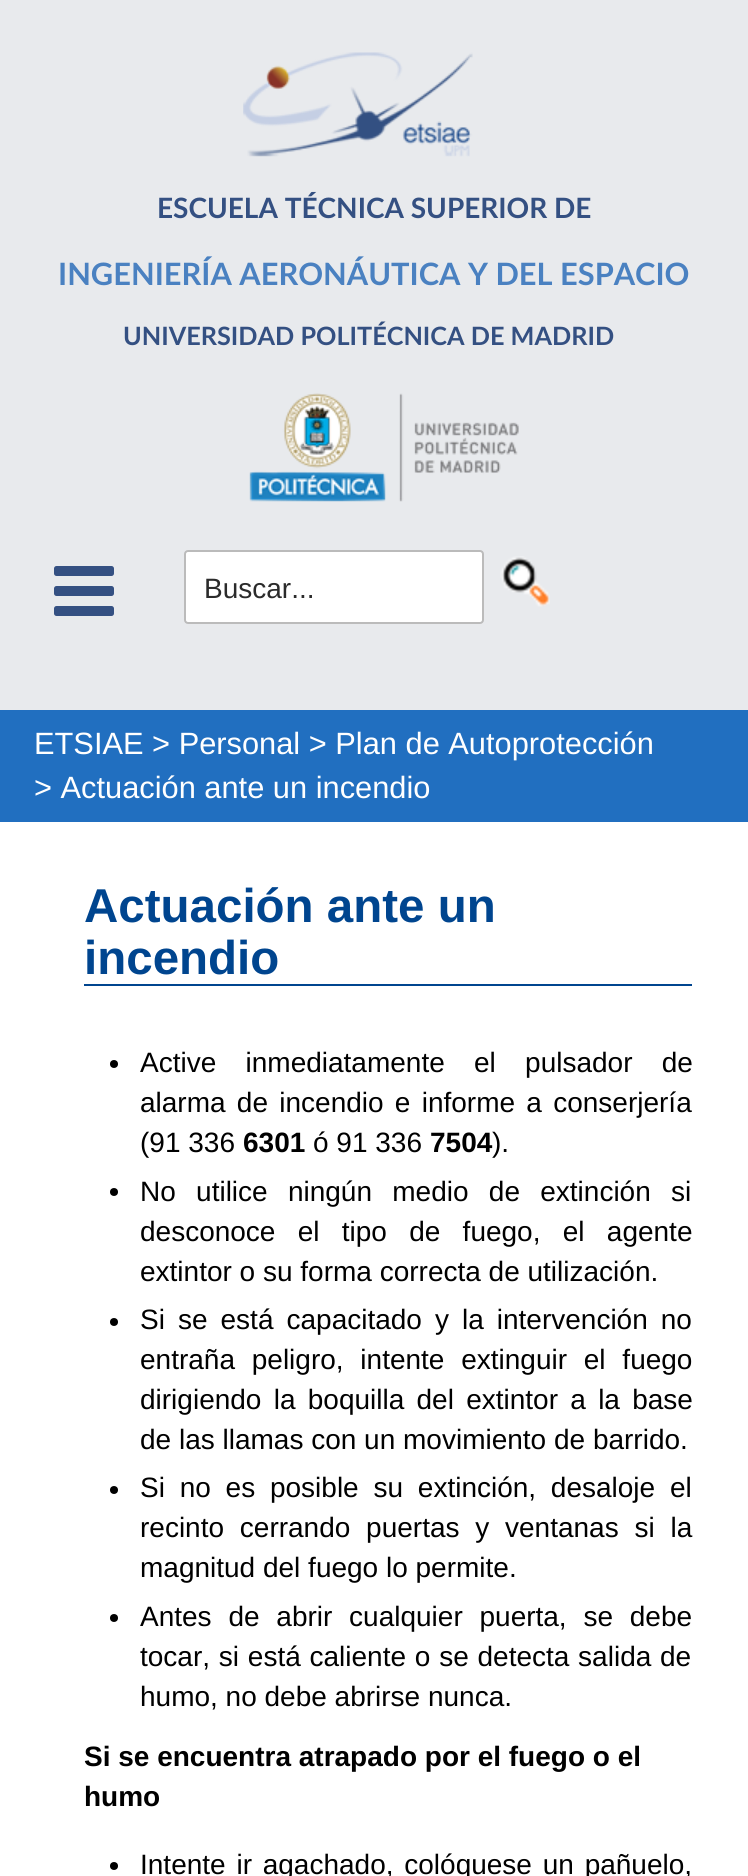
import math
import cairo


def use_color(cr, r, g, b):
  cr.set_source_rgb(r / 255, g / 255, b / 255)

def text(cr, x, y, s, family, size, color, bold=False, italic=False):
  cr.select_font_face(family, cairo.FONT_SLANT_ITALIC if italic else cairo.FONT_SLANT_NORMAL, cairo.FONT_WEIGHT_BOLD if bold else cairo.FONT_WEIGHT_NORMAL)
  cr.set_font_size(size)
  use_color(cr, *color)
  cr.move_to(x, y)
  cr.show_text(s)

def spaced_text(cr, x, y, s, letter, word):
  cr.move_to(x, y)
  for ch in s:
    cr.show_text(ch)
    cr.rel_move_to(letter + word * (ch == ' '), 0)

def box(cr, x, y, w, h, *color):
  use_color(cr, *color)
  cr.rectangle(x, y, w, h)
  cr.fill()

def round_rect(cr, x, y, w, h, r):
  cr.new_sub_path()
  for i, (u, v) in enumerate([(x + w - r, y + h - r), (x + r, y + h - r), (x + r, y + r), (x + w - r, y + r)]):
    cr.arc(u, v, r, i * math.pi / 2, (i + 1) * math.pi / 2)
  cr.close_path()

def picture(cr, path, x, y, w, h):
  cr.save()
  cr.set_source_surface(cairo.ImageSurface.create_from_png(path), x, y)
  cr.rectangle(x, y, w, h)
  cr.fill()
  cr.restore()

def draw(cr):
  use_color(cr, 255, 255, 255)
  cr.paint()
  box(cr, 0, 0, 748, 710, 232, 234, 237)
  picture(cr, "img_01.png", 243, 52, 230, 105)
  picture(cr, "img_02.png", 249, 393, 270, 109)
  picture(cr, "img_03.png", 54, 566, 60, 50)
  use_color(cr, 255, 255, 255)
  round_rect(cr, 185, 551, 298, 72, 3)
  cr.fill_preserve()
  use_color(cr, 187, 187, 187)
  cr.stroke()
  picture(cr, "img_04.png", 500, 556, 50, 51)
  box(cr, 0, 710, 748, 112, 33, 111, 192)
  box(cr, 84, 984, 608, 2, 0, 69, 143)
  use_color(cr, 0, 0, 0)
  cr.arc(114, 1064, 4, 0, 2 * math.pi)
  cr.fill()
  cr.arc(114, 1192, 4, 0, 2 * math.pi)
  cr.fill()
  cr.arc(114, 1322, 4, 0, 2 * math.pi)
  cr.fill()
  cr.arc(114, 1490, 4, 0, 2 * math.pi)
  cr.fill()
  cr.arc(114, 1618, 4, 0, 2 * math.pi)
  cr.fill()
  cr.arc(114, 1866, 4, 0, 2 * math.pi)
  cr.fill()
  text(cr, 157, 218, "ESCUELA TÉCNICA SUPERIOR DE", "Lato", 28, (52, 80, 130), bold=True)
  text(cr, 58, 285, "INGENIERÍA AERONÁUTICA Y DEL ESPACIO", "Lato", 30.8, (74, 129, 193), bold=True)
  text(cr, 123, 345, "UNIVERSIDAD POLITÉCNICA DE MADRID", "Lato", 25.25, (52, 80, 130), bold=True)
  text(cr, 204, 598, "Buscar...", "Liberation Sans", 28, (43, 43, 43))
  text(cr, 34, 754, "ETSIAE > Personal > Plan de Autoprotección", "Liberation Sans", 30.8, (255, 255, 255))
  text(cr, 34, 798, "> Actuación ante un incendio", "Liberation Sans", 30.8, (255, 255, 255))
  text(cr, 84, 922, "Actuación ante un", "Liberation Sans", 47.5, (0, 69, 143), bold=True)
  text(cr, 84, 974, "incendio", "Liberation Sans", 47.5, (0, 69, 143), bold=True)
  cr.select_font_face("Liberation Sans")
  cr.set_font_size(28)
  use_color(cr, 0, 0, 0)
  spaced_text(cr, 140, 1072, "Active inmediatamente el pulsador de", 0, 21.5)
  spaced_text(cr, 140, 1112, "alarma de incendio e informe a conserjería", 0, 3.5)
  text(cr, 140, 1152, "(91 336", "Liberation Sans", 28, (0, 0, 0))
  text(cr, 243, 1152, "6301", "Liberation Sans", 28, (0, 0, 0), bold=True)
  text(cr, 313, 1152, "ó 91 336", "Liberation Sans", 28, (0, 0, 0))
  text(cr, 430, 1152, "7504", "Liberation Sans", 28, (0, 0, 0), bold=True)
  text(cr, 492, 1152, ").", "Liberation Sans", 28, (0, 0, 0))
  spaced_text(cr, 140, 1201, "No utilice ningún medio de extinción si", 0, 12.5)
  spaced_text(cr, 140, 1241, "desconoce el tipo de fuego, el agente", 0, 14.5)
  text(cr, 140, 1281, "extintor o su forma correcta de utilización.", "Liberation Sans", 28, (0, 0, 0))
  spaced_text(cr, 140, 1329, "Si se está capacitado y la intervención no", 0, 5.25)
  spaced_text(cr, 140, 1369, "entraña peligro, intente extinguir el fuego", 0, 9)
  spaced_text(cr, 140, 1409, "dirigiendo la boquilla del extintor a la base", 0, 4.5)
  text(cr, 140, 1449, "de las llamas con un movimiento de barrido.", "Liberation Sans", 28, (0, 0, 0))
  spaced_text(cr, 140, 1497, "Si no es posible su extinción, desaloje el", 0, 7)
  spaced_text(cr, 140, 1537, "recinto cerrando puertas y ventanas si la", 0, 8)
  text(cr, 140, 1577, "magnitud del fuego lo permite.", "Liberation Sans", 28, (0, 0, 0))
  spaced_text(cr, 140, 1626, "Antes de abrir cualquier puerta, se debe", 0, 9)
  spaced_text(cr, 140, 1666, "tocar, si está caliente o se detecta salida de", 0, 1)
  text(cr, 140, 1706, "humo, no debe abrirse nunca.", "Liberation Sans", 28, (0, 0, 0))
  text(cr, 84, 1766, "Si se encuentra atrapado por el fuego o el", "Liberation Sans", 28, (0, 0, 0), bold=True)
  text(cr, 84, 1806, "humo", "Liberation Sans", 28, (0, 0, 0), bold=True)
  cr.select_font_face("Liberation Sans")
  spaced_text(cr, 140, 1874, "Intente ir agachado, colóquese un pañuelo,", 0, 3)


surface = cairo.ImageSurface(cairo.FORMAT_RGB24, 748, 1876)
cr = cairo.Context(surface)
options = cairo.FontOptions()
options.set_hint_metrics(cairo.HINT_METRICS_OFF)
options.set_hint_style(cairo.HINT_STYLE_NONE)
cr.set_font_options(options)
cr.set_miter_limit(4)
draw(cr)
surface.write_to_png("out.png")
